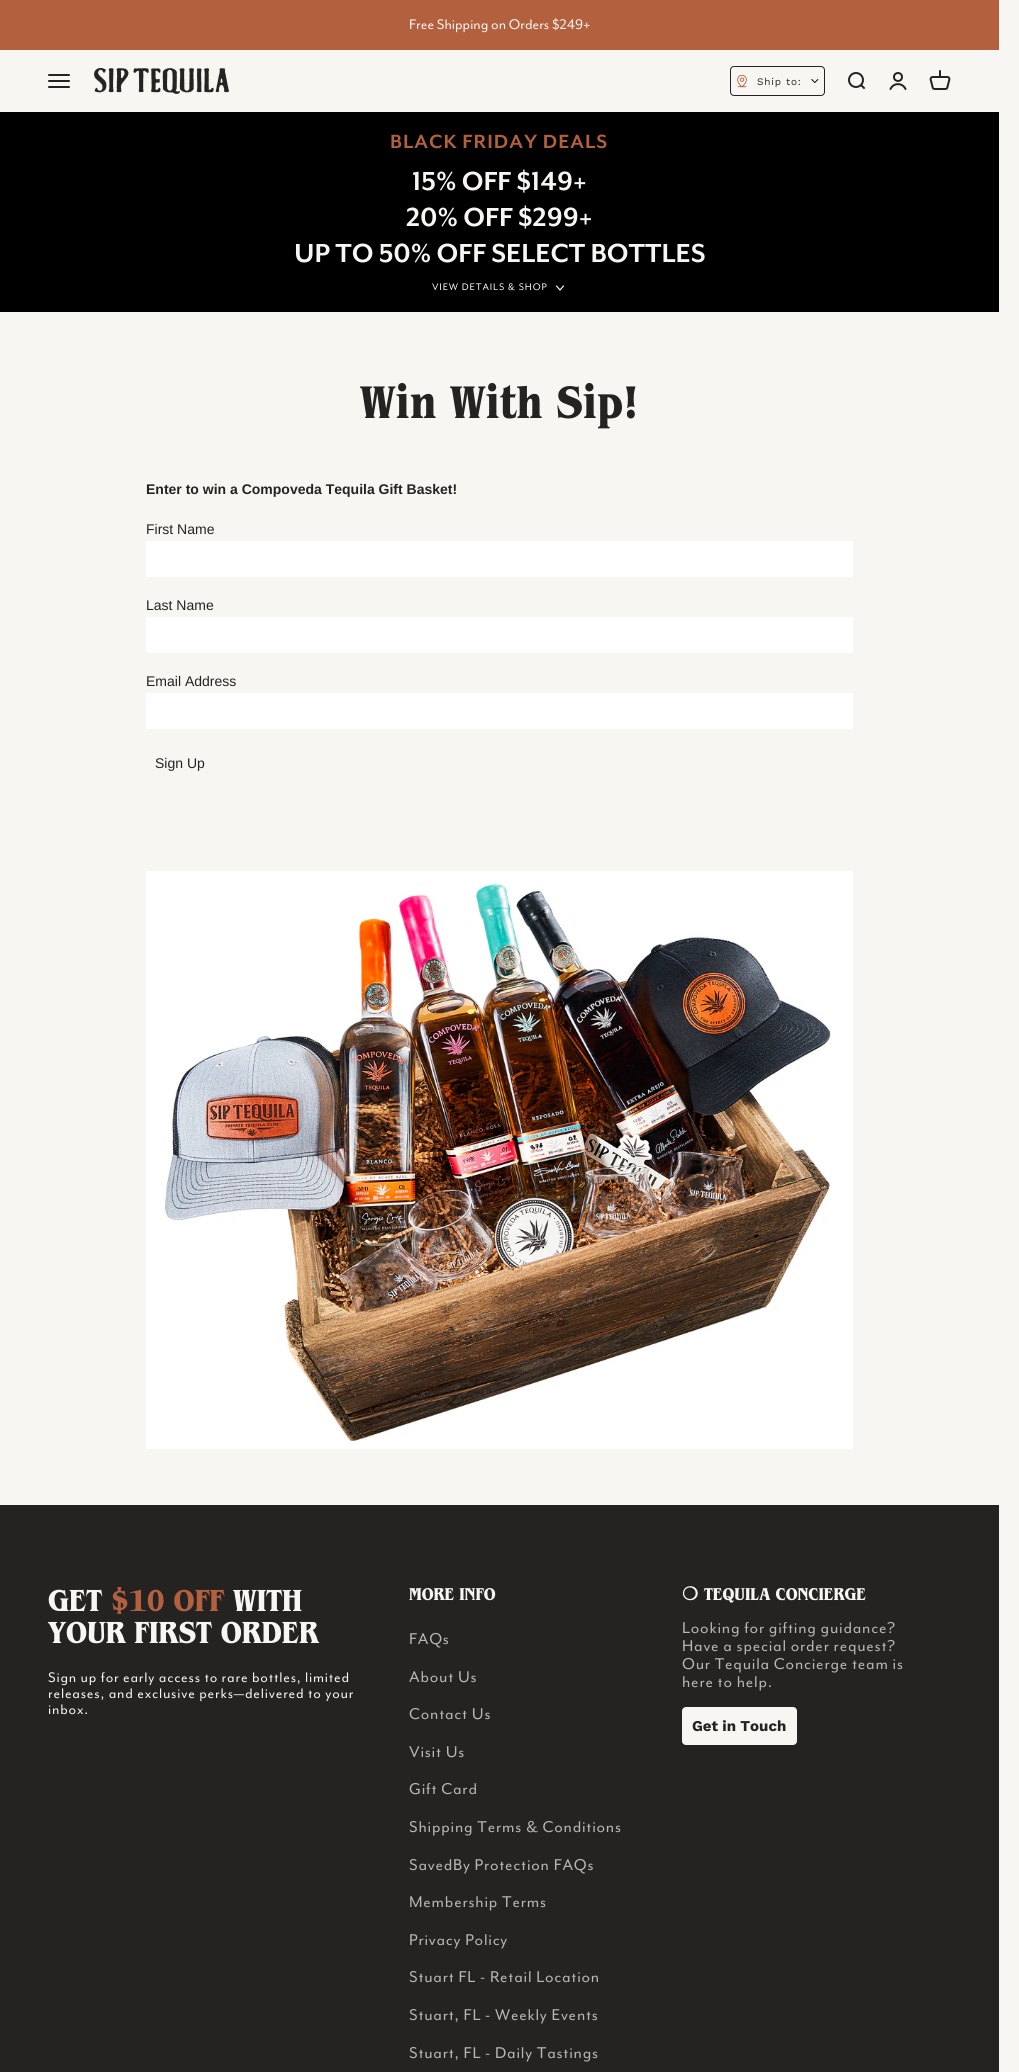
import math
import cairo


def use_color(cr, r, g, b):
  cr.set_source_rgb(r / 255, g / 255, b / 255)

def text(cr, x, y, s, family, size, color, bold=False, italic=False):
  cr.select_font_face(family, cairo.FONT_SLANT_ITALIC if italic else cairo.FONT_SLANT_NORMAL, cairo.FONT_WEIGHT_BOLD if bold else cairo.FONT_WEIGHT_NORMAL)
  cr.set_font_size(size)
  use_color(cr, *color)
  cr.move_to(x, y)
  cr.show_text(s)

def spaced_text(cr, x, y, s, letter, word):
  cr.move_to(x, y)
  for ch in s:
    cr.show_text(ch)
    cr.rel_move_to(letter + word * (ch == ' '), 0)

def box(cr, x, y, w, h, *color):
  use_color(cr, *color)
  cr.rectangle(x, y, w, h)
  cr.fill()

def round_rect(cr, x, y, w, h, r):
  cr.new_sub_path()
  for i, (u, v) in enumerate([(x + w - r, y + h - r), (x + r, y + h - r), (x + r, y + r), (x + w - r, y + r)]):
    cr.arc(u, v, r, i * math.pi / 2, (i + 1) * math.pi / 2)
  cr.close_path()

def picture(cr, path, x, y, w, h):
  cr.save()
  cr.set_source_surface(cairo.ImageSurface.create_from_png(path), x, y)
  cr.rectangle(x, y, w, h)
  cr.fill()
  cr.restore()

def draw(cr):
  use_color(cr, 247, 246, 243)
  cr.paint()
  box(cr, 0, 0, 999, 50, 179, 96, 63)
  picture(cr, "img_01.png", 48, 74, 22, 14)
  picture(cr, "img_02.png", 94, 68, 135, 26)
  round_rect(cr, 730.5, 66.5, 94, 29, 3.5)
  use_color(cr, 37, 35, 34)
  cr.set_line_width(1)
  cr.stroke()
  picture(cr, "img_03.png", 737, 74, 10, 14)
  picture(cr, "img_04.png", 811, 79, 8, 4)
  picture(cr, "img_05.png", 848, 72, 17, 17)
  cr.arc(898, 77, 4, 0, 2 * math.pi)
  cr.set_line_width(2)
  cr.stroke()
  cr.new_path()
  cr.move_to(890.5, 89)
  cr.curve_to(893.5, 82.5, 902.5, 82.5, 905.5, 89)
  cr.set_line_cap(cairo.LINE_CAP_ROUND)
  cr.stroke()
  picture(cr, "img_06.png", 929, 70, 22, 20)
  box(cr, 0, 112, 999, 200, 0, 0, 0)
  cr.new_path()
  cr.move_to(556.5, 286)
  cr.line_to(560, 290)
  cr.line_to(563.5, 286)
  use_color(cr, 247, 246, 243)
  cr.set_line_width(1.2)
  cr.set_line_join(cairo.LINE_JOIN_ROUND)
  cr.stroke()
  box(cr, 146, 541, 707, 36, 255, 255, 255)
  box(cr, 146, 617, 707, 36, 255, 255, 255)
  box(cr, 146, 693, 707, 36, 255, 255, 255)
  picture(cr, "img_07.png", 146, 871, 707, 578)
  box(cr, 0, 1505, 999, 567, 37, 35, 34)
  use_color(cr, 247, 246, 243)
  round_rect(cr, 682, 1707, 115, 38, 4)
  cr.fill()
  text(cr, 409, 29, "Free Shipping on Orders $249+", "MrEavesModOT", 16, (247, 246, 243))
  cr.select_font_face("Work Sans")
  cr.set_font_size(10)
  use_color(cr, 37, 35, 34)
  spaced_text(cr, 757, 85, "Ship to:", 0.8, 0)
  cr.select_font_face("MrEavesModOT", cairo.FONT_SLANT_NORMAL, cairo.FONT_WEIGHT_BOLD)
  cr.set_font_size(22)
  use_color(cr, 179, 96, 63)
  spaced_text(cr, 390, 148, "BLACK FRIDAY DEALS", 1, 0)
  text(cr, 412, 190, "15% OFF $149+", "MrEavesModOT", 30, (247, 246, 243), bold=True)
  text(cr, 406, 226, "20% OFF $299+", "MrEavesModOT", 30, (247, 246, 243), bold=True)
  text(cr, 294, 262, "UP TO 50% OFF SELECT BOTTLES", "MrEavesModOT", 30, (247, 246, 243), bold=True)
  cr.select_font_face("MrEavesModOT")
  cr.set_font_size(11)
  spaced_text(cr, 432, 290, "VIEW DETAILS & SHOP", 0.9, 0)
  text(cr, 360, 418, "Win With Sip!", "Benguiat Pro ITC", 48, (37, 35, 34), bold=True)
  text(cr, 146, 494, "Enter to win a Compoveda Tequila Gift Basket!", "Liberation Sans", 14, (37, 35, 34), bold=True)
  text(cr, 146, 534, "First Name", "Liberation Sans", 14, (37, 35, 34))
  text(cr, 146, 610, "Last Name", "Liberation Sans", 14, (37, 35, 34))
  text(cr, 146, 686, "Email Address", "Liberation Sans", 14, (37, 35, 34))
  text(cr, 155, 768, "Sign Up", "Liberation Sans", 14, (37, 35, 34))
  text(cr, 48, 1611, "GET", "Benguiat Pro ITC", 32, (247, 246, 243), bold=True)
  text(cr, 111, 1611, "$10 OFF", "Benguiat Pro ITC", 32, (179, 96, 63), bold=True)
  text(cr, 233, 1611, "WITH", "Benguiat Pro ITC", 32, (247, 246, 243), bold=True)
  text(cr, 48, 1643, "YOUR FIRST ORDER", "Benguiat Pro ITC", 32, (247, 246, 243), bold=True)
  cr.select_font_face("MrEavesModOT")
  cr.set_font_size(16)
  spaced_text(cr, 48, 1682, "Sign up for early access to rare bottles, limited", 0.8, 0)
  spaced_text(cr, 48, 1698, "releases, and exclusive perks—delivered to your", 0.8, 0)
  spaced_text(cr, 48, 1714, "inbox.", 0.8, 0)
  text(cr, 409, 1600, "MORE INFO", "Benguiat Pro ITC", 18, (247, 246, 243), bold=True)
  cr.select_font_face("MrEavesModOT")
  use_color(cr, 184, 183, 180)
  spaced_text(cr, 409, 1644, "FAQs", 0.8, 0)
  spaced_text(cr, 409, 1682, "About Us", 0.8, 0)
  spaced_text(cr, 409, 1719, "Contact Us", 0.8, 0)
  spaced_text(cr, 409, 1757, "Visit Us", 0.8, 0)
  spaced_text(cr, 409, 1794, "Gift Card", 0.8, 0)
  spaced_text(cr, 409, 1832, "Shipping Terms & Conditions", 0.8, 0)
  spaced_text(cr, 409, 1870, "SavedBy Protection FAQs", 0.8, 0)
  spaced_text(cr, 409, 1907, "Membership Terms", 0.8, 0)
  spaced_text(cr, 409, 1945, "Privacy Policy", 0.8, 0)
  spaced_text(cr, 409, 1982, "Stuart FL - Retail Location", 0.8, 0)
  spaced_text(cr, 409, 2020, "Stuart, FL - Weekly Events", 0.8, 0)
  spaced_text(cr, 409, 2058, "Stuart, FL - Daily Tastings", 0.8, 0)
  text(cr, 682, 1600, "❍", "DejaVu Sans", 18, (247, 246, 243), bold=True)
  text(cr, 704, 1600, "TEQUILA CONCIERGE", "Benguiat Pro ITC", 18, (247, 246, 243), bold=True)
  cr.select_font_face("MrEavesModOT")
  use_color(cr, 184, 183, 180)
  spaced_text(cr, 682, 1633, "Looking for gifting guidance?", 0.8, 0)
  spaced_text(cr, 682, 1651, "Have a special order request?", 0.8, 0)
  spaced_text(cr, 682, 1669, "Our Tequila Concierge team is", 0.8, 0)
  spaced_text(cr, 682, 1687, "here to help.", 0.8, 0)
  text(cr, 692, 1731, "Get in Touch", "Work Sans", 15, (37, 35, 34), bold=True)


surface = cairo.ImageSurface(cairo.FORMAT_RGB24, 1019, 2072)
cr = cairo.Context(surface)
options = cairo.FontOptions()
options.set_hint_metrics(cairo.HINT_METRICS_OFF)
options.set_hint_style(cairo.HINT_STYLE_NONE)
cr.set_font_options(options)
cr.set_miter_limit(4)
draw(cr)
surface.write_to_png("out.png")
